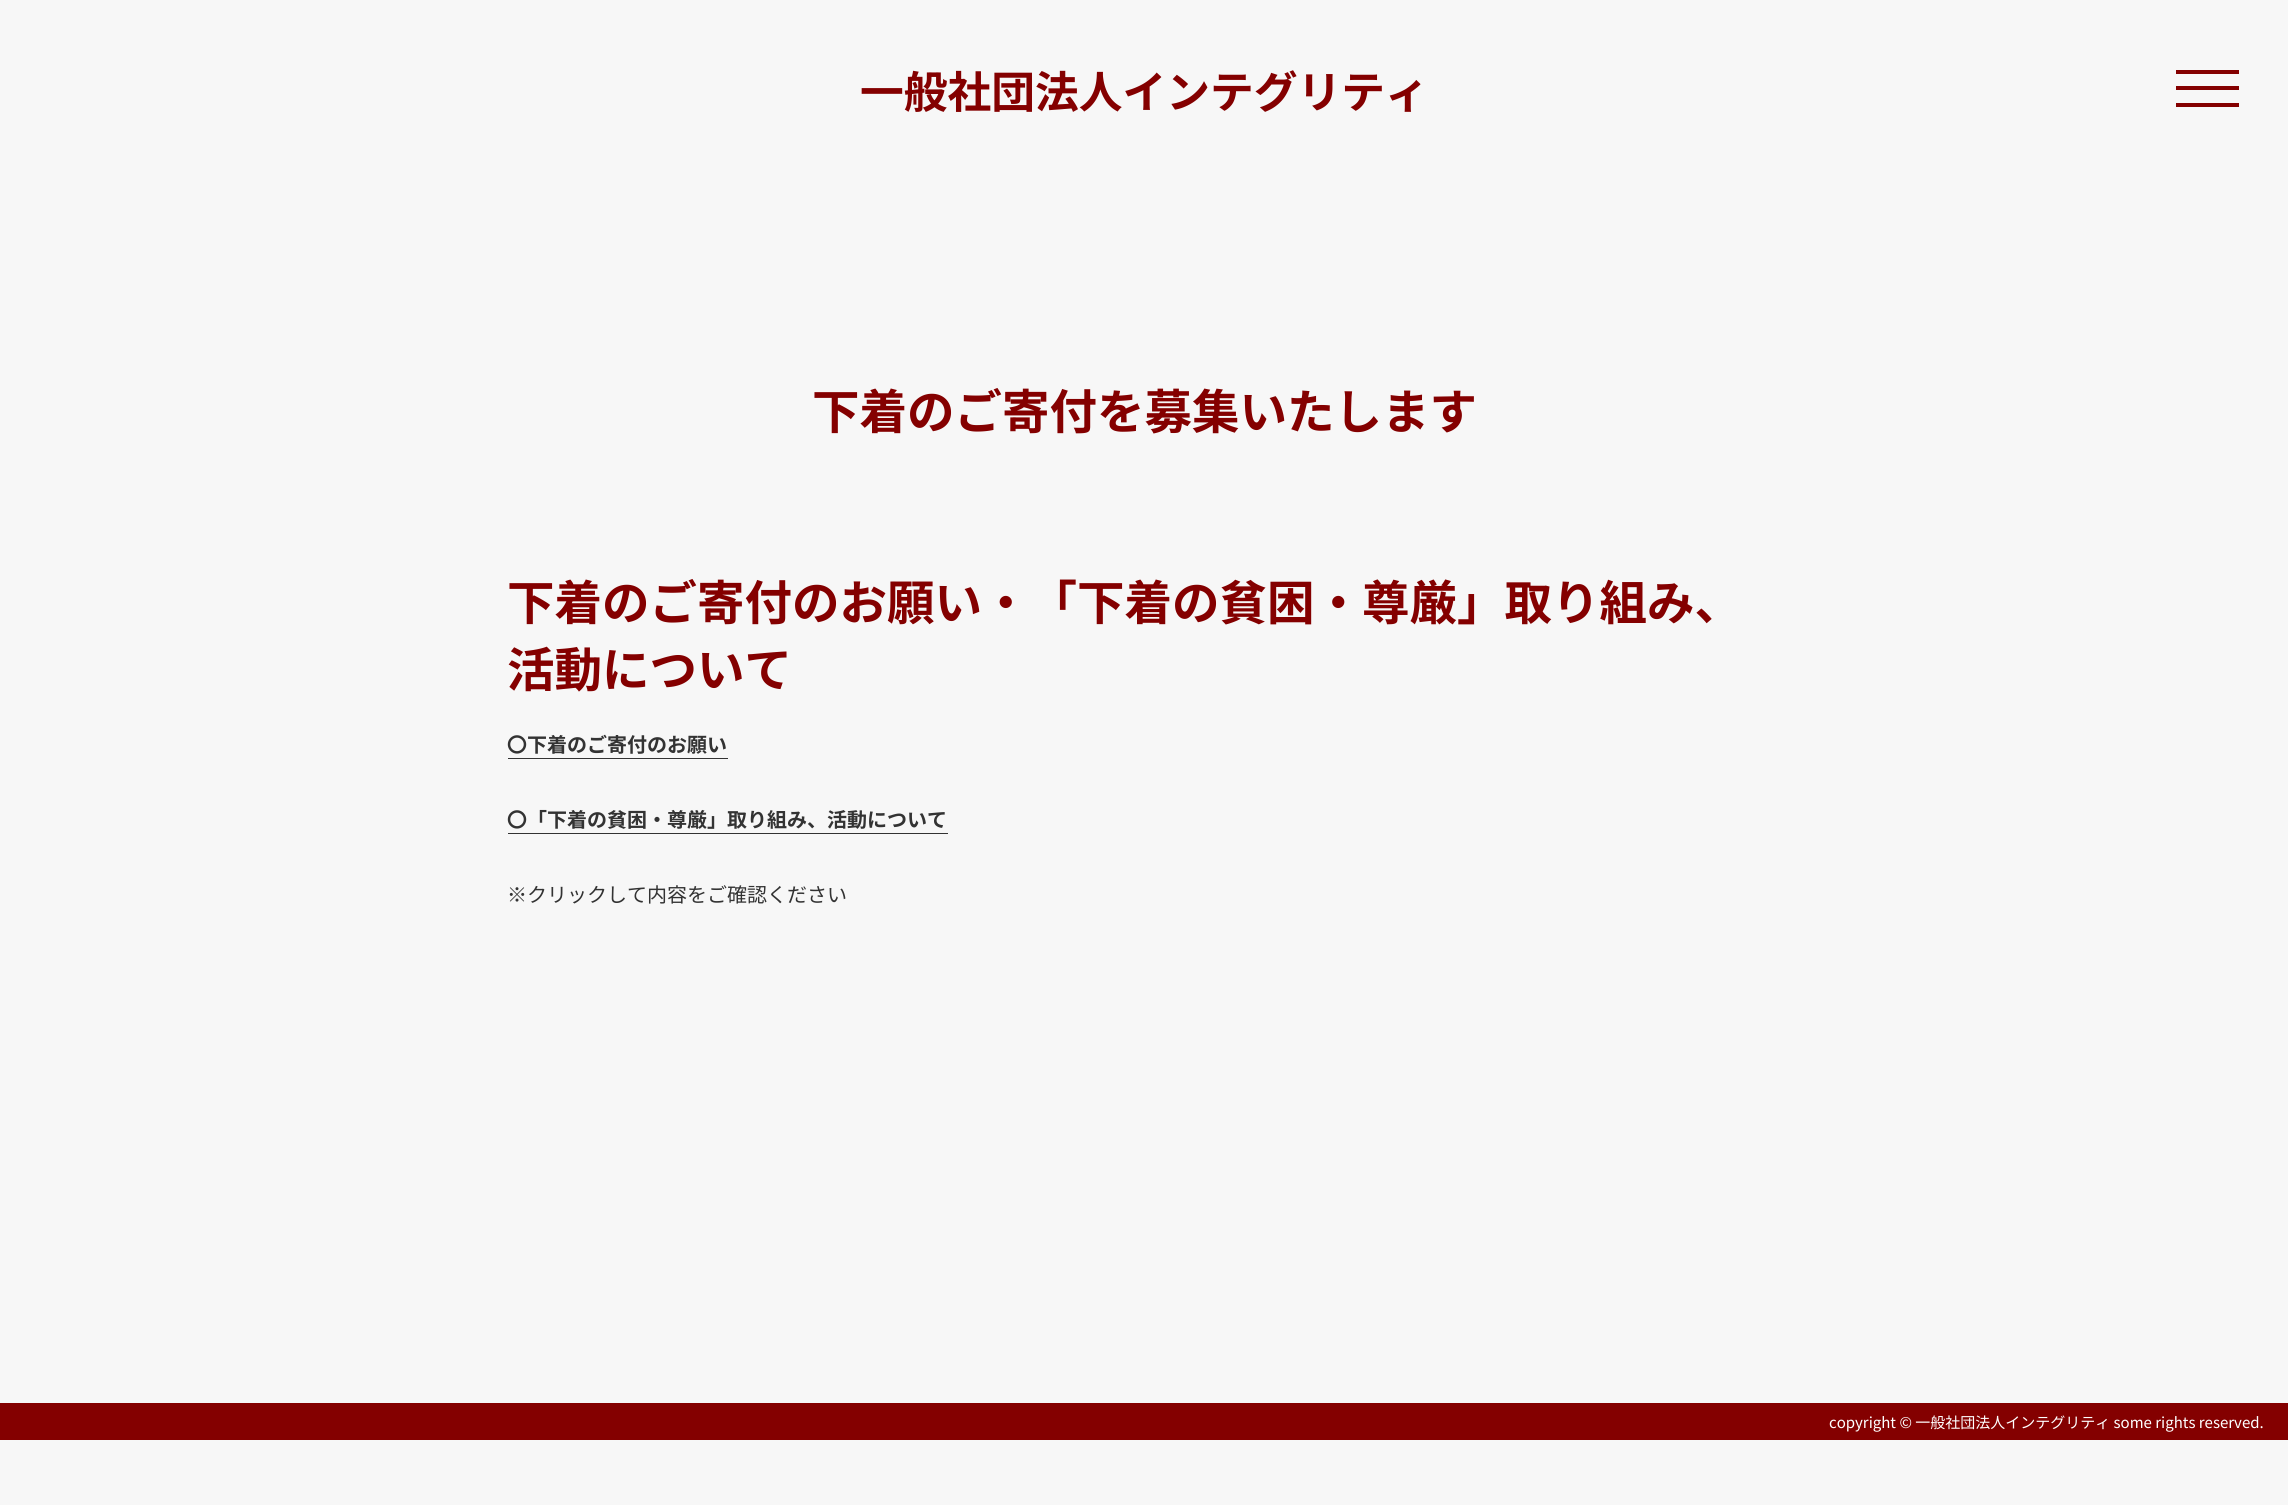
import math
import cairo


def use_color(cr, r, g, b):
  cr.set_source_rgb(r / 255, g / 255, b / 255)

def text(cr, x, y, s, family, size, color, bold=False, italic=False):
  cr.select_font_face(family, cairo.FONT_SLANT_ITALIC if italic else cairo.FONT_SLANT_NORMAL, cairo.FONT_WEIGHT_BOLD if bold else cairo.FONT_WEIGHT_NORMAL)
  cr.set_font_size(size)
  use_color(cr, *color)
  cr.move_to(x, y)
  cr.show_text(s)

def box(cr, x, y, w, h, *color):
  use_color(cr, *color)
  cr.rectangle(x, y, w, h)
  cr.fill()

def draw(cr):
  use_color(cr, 247, 247, 247)
  cr.paint()
  box(cr, 2176, 70, 63, 4, 132, 0, 0)
  box(cr, 2176, 86, 63, 4, 132, 0, 0)
  box(cr, 2176, 103, 63, 4, 132, 0, 0)
  box(cr, 508, 758, 220, 1, 51, 51, 51)
  box(cr, 508, 833, 440, 1, 51, 51, 51)
  box(cr, 0, 1403, 2288, 37, 132, 0, 0)
  text(cr, 860, 108, "一般社団法人インテグリティ", "Noto Sans JP", 43.75, (132, 0, 0), bold=True)
  text(cr, 812, 429, "下着のご寄付を募集いたします", "Noto Sans JP", 47.5, (132, 0, 0), bold=True)
  text(cr, 507, 620, "下着のご寄付のお願い・「下着の貧困・尊厳」取り組み、", "Noto Sans JP", 47.5, (132, 0, 0), bold=True)
  text(cr, 507, 687, "活動について", "Noto Sans JP", 47.5, (132, 0, 0), bold=True)
  text(cr, 507, 752, "〇下着のご寄付のお願い", "Noto Sans JP", 20, (51, 51, 51), bold=True)
  text(cr, 507, 827, "〇「下着の貧困・尊厳」取り組み、活動について", "Noto Sans JP", 20, (51, 51, 51), bold=True)
  text(cr, 507, 902, "※クリックして内容をご確認ください", "Noto Sans JP", 20, (51, 51, 51))
  text(cr, 1829, 1428, "copyright © 一般社団法人インテグリティ some rights reserved.", "Noto Sans JP", 15, (255, 255, 255))


surface = cairo.ImageSurface(cairo.FORMAT_RGB24, 2288, 1505)
cr = cairo.Context(surface)
options = cairo.FontOptions()
options.set_hint_metrics(cairo.HINT_METRICS_OFF)
options.set_hint_style(cairo.HINT_STYLE_NONE)
cr.set_font_options(options)
cr.set_miter_limit(4)
draw(cr)
surface.write_to_png("out.png")
